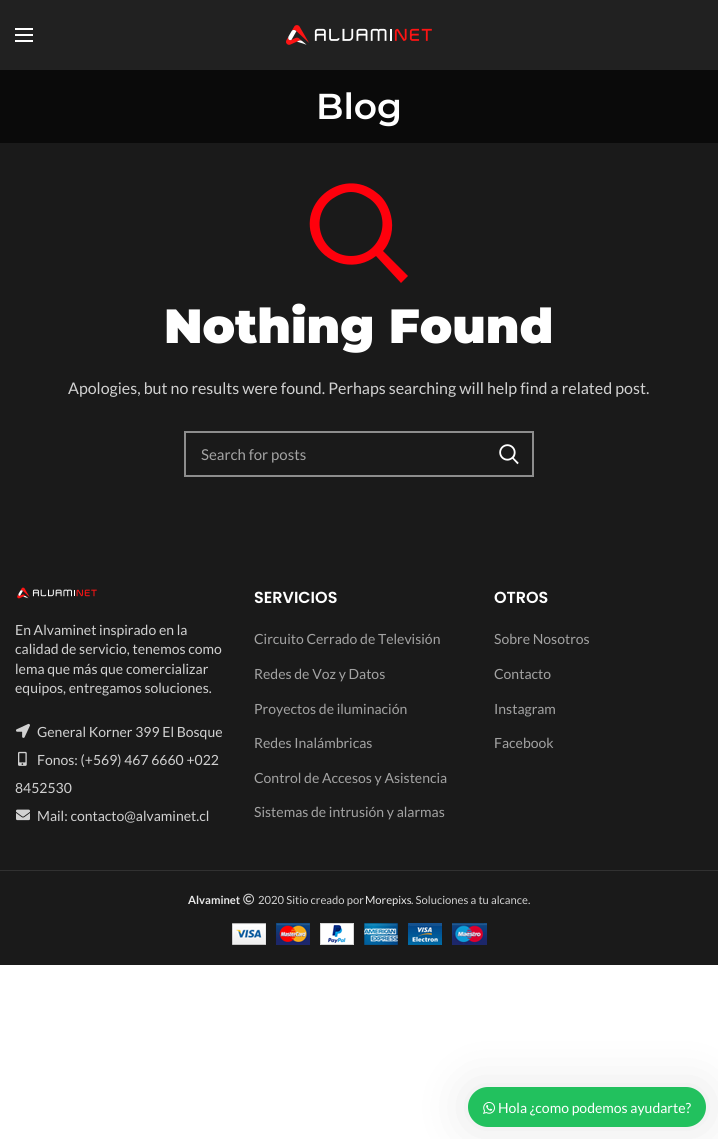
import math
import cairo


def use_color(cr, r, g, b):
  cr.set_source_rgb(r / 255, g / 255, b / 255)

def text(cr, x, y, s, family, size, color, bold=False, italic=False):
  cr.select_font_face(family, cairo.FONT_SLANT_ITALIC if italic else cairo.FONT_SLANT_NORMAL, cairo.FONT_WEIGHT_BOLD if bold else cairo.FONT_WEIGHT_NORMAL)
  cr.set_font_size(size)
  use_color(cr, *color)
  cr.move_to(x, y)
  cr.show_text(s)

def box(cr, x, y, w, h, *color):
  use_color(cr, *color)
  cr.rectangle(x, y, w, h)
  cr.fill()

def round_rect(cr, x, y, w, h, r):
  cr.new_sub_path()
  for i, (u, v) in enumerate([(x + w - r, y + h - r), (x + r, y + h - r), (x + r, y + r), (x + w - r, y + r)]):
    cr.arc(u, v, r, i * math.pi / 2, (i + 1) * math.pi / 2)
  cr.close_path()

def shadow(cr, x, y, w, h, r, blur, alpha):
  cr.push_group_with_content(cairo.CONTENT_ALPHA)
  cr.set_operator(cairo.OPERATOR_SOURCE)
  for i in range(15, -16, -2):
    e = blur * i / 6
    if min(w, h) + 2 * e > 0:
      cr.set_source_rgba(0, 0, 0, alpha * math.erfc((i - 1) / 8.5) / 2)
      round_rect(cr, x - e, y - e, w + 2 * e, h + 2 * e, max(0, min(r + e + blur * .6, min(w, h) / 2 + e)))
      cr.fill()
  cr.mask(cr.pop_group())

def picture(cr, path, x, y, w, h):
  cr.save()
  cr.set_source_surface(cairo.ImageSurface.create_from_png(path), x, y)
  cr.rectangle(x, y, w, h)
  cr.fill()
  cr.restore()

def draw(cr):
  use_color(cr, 255, 255, 255)
  cr.paint()
  box(cr, 0, 143, 718, 822, 26, 26, 26)
  box(cr, 0, 0, 718, 70, 33, 33, 33)
  box(cr, 15, 34, 18, 2, 255, 255, 255)
  box(cr, 15, 28, 18, 2, 255, 255, 255)
  box(cr, 15, 40, 18, 2, 255, 255, 255)
  picture(cr, "img_01.png", 286, 25, 146, 20)
  box(cr, 0, 70, 718, 73, 10, 10, 10)
  use_color(cr, 255, 0, 12)
  cr.new_path()
  cr.move_to(383, 251)
  cr.line_to(408, 276)
  cr.line_to(401, 283)
  cr.line_to(376, 256)
  cr.curve_to(357, 271, 329, 266, 316, 245)
  cr.curve_to(292, 206, 342, 164, 377, 193)
  cr.curve_to(384, 198, 389, 207, 391, 216)
  cr.curve_to(394, 228, 391, 242, 383, 251)
  cr.close_path()
  cr.move_to(351, 256)
  cr.curve_to(381, 256, 394, 217, 370, 199)
  cr.curve_to(364, 195, 358, 192, 351, 192)
  cr.curve_to(344, 192, 338, 195, 332, 199)
  cr.curve_to(308, 217, 321, 256, 351, 256)
  cr.close_path()
  cr.fill()
  cr.rectangle(185, 432, 348, 44)
  use_color(cr, 141, 141, 141)
  cr.stroke()
  picture(cr, "img_02.png", 499, 444, 20, 21)
  picture(cr, "img_03.png", 17, 587, 80, 12)
  picture(cr, "img_04.png", 16, 723, 14, 15)
  picture(cr, "img_05.png", 18, 751, 9, 15)
  picture(cr, "img_06.png", 16, 809, 14, 12)
  box(cr, 0, 870, 718, 1, 49, 49, 49)
  picture(cr, "img_07.png", 243, 893, 11, 12)
  picture(cr, "img_08.png", 232, 923, 255, 22)
  use_color(cr, 0, 0, 0)
  shadow(cr, 468, 1087, 238, 40, 20, 25, 0.1)
  use_color(cr, 34, 193, 94)
  round_rect(cr, 468, 1087, 238, 40, 20)
  cr.fill()
  picture(cr, "img_09.png", 483, 1102, 12, 12)
  text(cr, 316, 119, "Blog", "Montserrat SemiBold", 36, (255, 255, 255))
  text(cr, 164, 343, "Nothing Found", "Montserrat Black", 48, (255, 255, 255))
  text(cr, 68, 394, "Apologies, but no results were found. Perhaps searching will help find a related post.", "Lato", 16, (209, 209, 209))
  text(cr, 201, 460, "Search for posts", "Lato", 15, (163, 163, 163))
  text(cr, 15, 635, "En Alvaminet inspirado en la", "Lato", 14, (209, 209, 209))
  text(cr, 15, 654, "calidad de servicio, tenemos como", "Lato", 14, (209, 209, 209))
  text(cr, 15, 674, "lema que más que comercializar", "Lato", 14, (209, 209, 209))
  text(cr, 15, 693, "equipos, entregamos soluciones.", "Lato", 14, (209, 209, 209))
  text(cr, 37, 737, "General Korner 399 El Bosque", "Lato", 14, (209, 209, 209))
  text(cr, 37, 765, "Fonos: (+569) 467 6660 +022", "Lato", 14, (209, 209, 209))
  text(cr, 15, 793, "8452530", "Lato", 14, (209, 209, 209))
  text(cr, 37, 821, "Mail: contacto@alvaminet.cl", "Lato", 14, (209, 209, 209))
  text(cr, 254, 603, "SERVICIOS", "Poppins SemiBold", 16, (255, 255, 255))
  text(cr, 254, 644, "Circuito Cerrado de Televisión", "Lato", 14, (163, 163, 163))
  text(cr, 254, 679, "Redes de Voz y Datos", "Lato", 14, (163, 163, 163))
  text(cr, 254, 714, "Proyectos de iluminación", "Lato", 14, (163, 163, 163))
  text(cr, 254, 748, "Redes Inalámbricas", "Lato", 14, (163, 163, 163))
  text(cr, 254, 783, "Control de Accesos y Asistencia", "Lato", 14, (163, 163, 163))
  text(cr, 254, 817, "Sistemas de intrusión y alarmas", "Lato", 14, (163, 163, 163))
  text(cr, 494, 603, "OTROS", "Poppins SemiBold", 16, (255, 255, 255))
  text(cr, 494, 644, "Sobre Nosotros", "Lato", 14, (163, 163, 163))
  text(cr, 494, 679, "Contacto", "Lato", 14, (163, 163, 163))
  text(cr, 494, 714, "Instagram", "Lato", 14, (163, 163, 163))
  text(cr, 494, 748, "Facebook", "Lato", 14, (163, 163, 163))
  text(cr, 188, 904, "Alvaminet", "Lato", 11.25, (232, 232, 232), bold=True)
  text(cr, 258, 904, "2020 Sitio creado por", "Lato", 11.25, (209, 209, 209))
  text(cr, 365, 904, "Morepixs", "Lato", 11.25, (232, 232, 232))
  text(cr, 411, 904, ". Soluciones a tu alcance.", "Lato", 11.25, (209, 209, 209))
  text(cr, 498, 1113, "Hola ¿como podemos ayudarte?", "Lato", 14, (255, 255, 255))


surface = cairo.ImageSurface(cairo.FORMAT_RGB24, 718, 1139)
cr = cairo.Context(surface)
options = cairo.FontOptions()
options.set_hint_metrics(cairo.HINT_METRICS_OFF)
options.set_hint_style(cairo.HINT_STYLE_NONE)
cr.set_font_options(options)
cr.set_miter_limit(4)
draw(cr)
surface.write_to_png("out.png")
